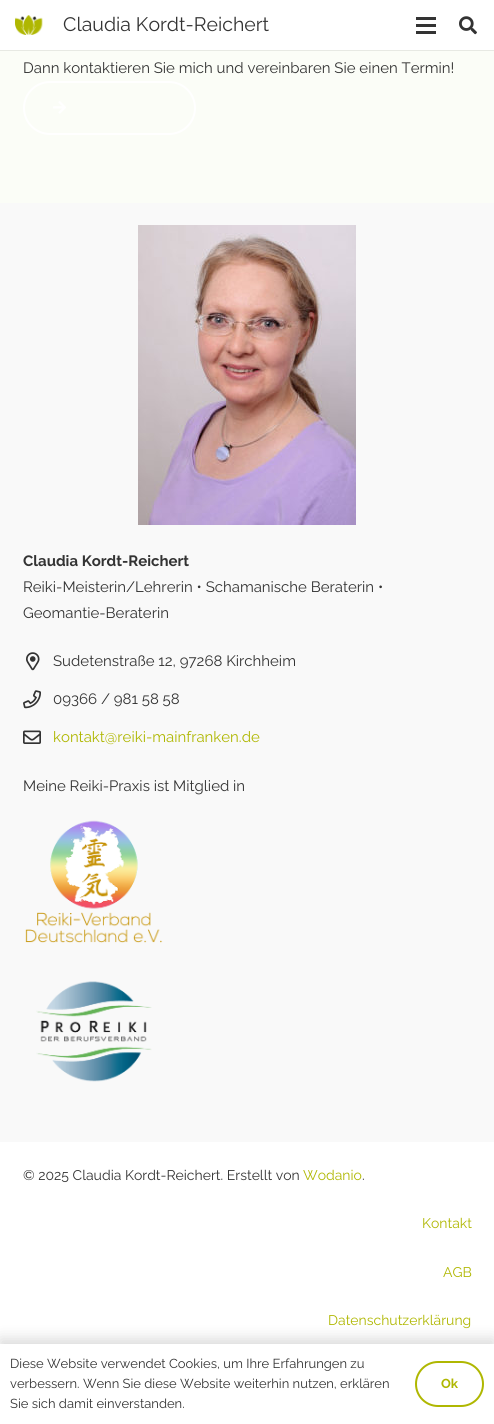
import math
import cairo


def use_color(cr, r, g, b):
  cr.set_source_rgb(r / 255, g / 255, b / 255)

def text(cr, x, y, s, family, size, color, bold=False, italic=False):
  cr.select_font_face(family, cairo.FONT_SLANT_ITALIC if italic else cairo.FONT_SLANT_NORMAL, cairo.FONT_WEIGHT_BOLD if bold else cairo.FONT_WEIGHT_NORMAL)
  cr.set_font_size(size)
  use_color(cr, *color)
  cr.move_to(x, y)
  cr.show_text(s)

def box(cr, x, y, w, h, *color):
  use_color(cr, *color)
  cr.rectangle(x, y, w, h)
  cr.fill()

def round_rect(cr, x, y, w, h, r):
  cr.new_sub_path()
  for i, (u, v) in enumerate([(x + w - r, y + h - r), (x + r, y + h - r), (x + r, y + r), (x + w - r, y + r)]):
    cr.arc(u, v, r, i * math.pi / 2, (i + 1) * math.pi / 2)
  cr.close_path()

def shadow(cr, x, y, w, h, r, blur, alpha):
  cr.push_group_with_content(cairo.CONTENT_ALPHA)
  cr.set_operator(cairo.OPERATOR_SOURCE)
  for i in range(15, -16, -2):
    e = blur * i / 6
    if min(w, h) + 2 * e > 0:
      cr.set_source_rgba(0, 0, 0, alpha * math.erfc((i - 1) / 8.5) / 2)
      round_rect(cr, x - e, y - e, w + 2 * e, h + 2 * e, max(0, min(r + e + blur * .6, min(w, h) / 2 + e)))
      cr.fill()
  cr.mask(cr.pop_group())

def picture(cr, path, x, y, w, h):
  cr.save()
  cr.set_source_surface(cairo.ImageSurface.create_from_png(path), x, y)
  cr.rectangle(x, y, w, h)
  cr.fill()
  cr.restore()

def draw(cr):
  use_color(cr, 255, 255, 255)
  cr.paint()
  box(cr, 0, 50, 494, 1, 231, 233, 227)
  picture(cr, "img_01.png", 15, 15, 28, 20)
  box(cr, 416, 24, 20, 3, 51, 51, 51)
  box(cr, 416, 17, 20, 3, 51, 51, 51)
  box(cr, 416, 31, 20, 3, 51, 51, 51)
  picture(cr, "img_02.png", 459, 16, 18, 19)
  box(cr, 0, 51, 494, 152, 251, 253, 247)
  picture(cr, "img_03.png", 53, 101, 13, 13)
  round_rect(cr, 24, 82, 171, 52, 26)
  use_color(cr, 255, 255, 255)
  cr.stroke()
  box(cr, 0, 203, 494, 939, 249, 249, 249)
  picture(cr, "img_04.png", 138, 225, 218, 300)
  picture(cr, "img_05.png", 26, 652, 14, 19)
  picture(cr, "img_06.png", 23, 690, 18, 19)
  picture(cr, "img_07.png", 23, 730, 18, 14)
  picture(cr, "img_08.png", 25, 820, 138, 123)
  picture(cr, "img_09.png", 36, 981, 116, 101)
  use_color(cr, 0, 0, 0)
  shadow(cr, 0, 1339, 494, 80, 0, 7.5, 0.15)
  box(cr, 0, 1344, 494, 80, 255, 255, 255)
  round_rect(cr, 416, 1362, 67, 44, 22)
  use_color(cr, 175, 183, 1)
  cr.stroke()
  text(cr, 63, 31, "Claudia Kordt-Reichert", "Raleway", 19.5, (51, 51, 51))
  text(cr, 23, 73, "Dann kontaktieren Sie mich und vereinbaren Sie einen Termin!", "Raleway", 15, (51, 51, 51))
  text(cr, 23, 566, "Claudia Kordt-Reichert", "Raleway", 15, (51, 51, 51), bold=True)
  text(cr, 23, 592, "Reiki-Meisterin/Lehrerin • Schamanische Beraterin •", "Raleway", 15, (51, 51, 51))
  text(cr, 23, 618, "Geomantie-Beraterin", "Raleway", 15, (51, 51, 51))
  text(cr, 53, 666, "Sudetenstraße 12, 97268 Kirchheim", "Raleway", 15, (51, 51, 51))
  text(cr, 53, 704, "09366 / 981 58 58", "Raleway", 15, (51, 51, 51))
  text(cr, 53, 742, "kontakt@reiki-mainfranken.de", "Raleway", 15, (175, 183, 1))
  text(cr, 23, 791, "Meine Reiki-Praxis ist Mitglied in", "Raleway", 15, (51, 51, 51))
  text(cr, 23, 1180, "© 2025 Claudia Kordt-Reichert. Erstellt von", "Raleway", 14, (51, 51, 51))
  text(cr, 303, 1180, "Wodanio", "Raleway", 14, (175, 183, 1))
  text(cr, 362, 1180, ".", "Raleway", 14, (51, 51, 51))
  text(cr, 422, 1228, "Kontakt", "Raleway", 14, (175, 183, 1))
  text(cr, 443, 1277, "AGB", "Raleway", 14, (175, 183, 1))
  text(cr, 328, 1325, "Datenschutzerklärung", "Raleway", 14, (175, 183, 1))
  text(cr, 10, 1368, "Diese Website verwendet Cookies, um Ihre Erfahrungen zu", "Raleway", 13, (51, 51, 51))
  text(cr, 10, 1388, "verbessern. Wenn Sie diese Website weiterhin nutzen, erklären", "Raleway", 13, (51, 51, 51))
  text(cr, 10, 1408, "Sie sich damit einverstanden.", "Raleway", 13, (51, 51, 51))
  text(cr, 441, 1388, "Ok", "Raleway", 13, (175, 183, 1), bold=True)


surface = cairo.ImageSurface(cairo.FORMAT_RGB24, 494, 1424)
cr = cairo.Context(surface)
options = cairo.FontOptions()
options.set_hint_metrics(cairo.HINT_METRICS_OFF)
options.set_hint_style(cairo.HINT_STYLE_NONE)
cr.set_font_options(options)
cr.set_miter_limit(4)
draw(cr)
surface.write_to_png("out.png")
